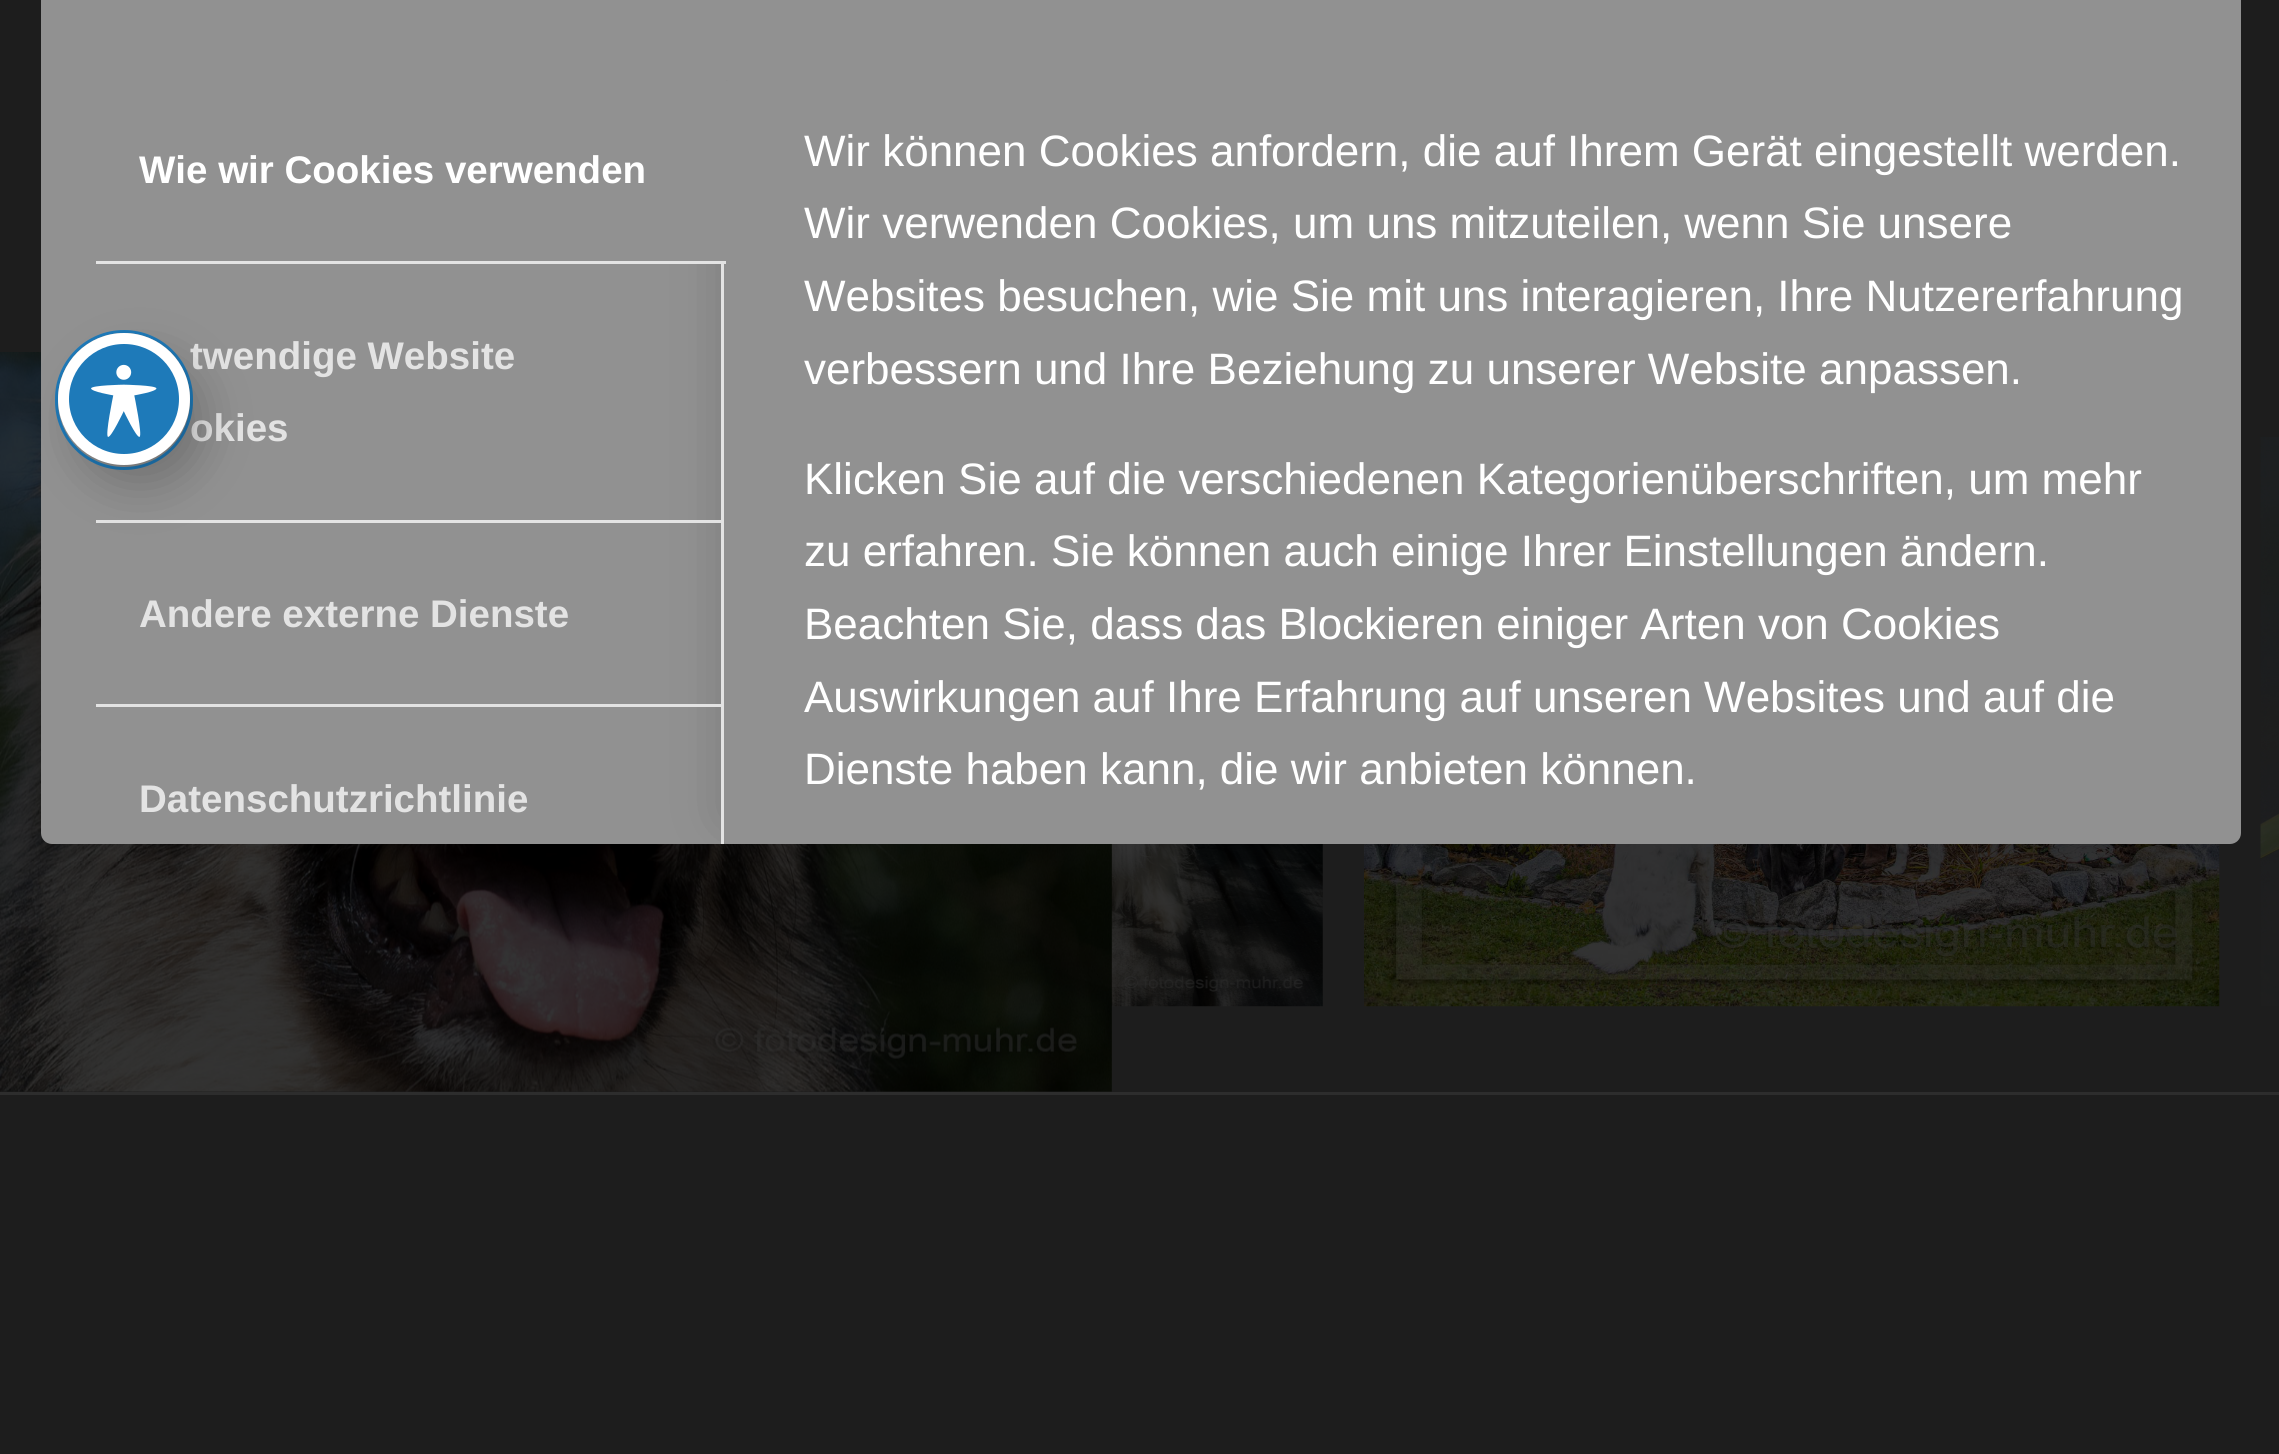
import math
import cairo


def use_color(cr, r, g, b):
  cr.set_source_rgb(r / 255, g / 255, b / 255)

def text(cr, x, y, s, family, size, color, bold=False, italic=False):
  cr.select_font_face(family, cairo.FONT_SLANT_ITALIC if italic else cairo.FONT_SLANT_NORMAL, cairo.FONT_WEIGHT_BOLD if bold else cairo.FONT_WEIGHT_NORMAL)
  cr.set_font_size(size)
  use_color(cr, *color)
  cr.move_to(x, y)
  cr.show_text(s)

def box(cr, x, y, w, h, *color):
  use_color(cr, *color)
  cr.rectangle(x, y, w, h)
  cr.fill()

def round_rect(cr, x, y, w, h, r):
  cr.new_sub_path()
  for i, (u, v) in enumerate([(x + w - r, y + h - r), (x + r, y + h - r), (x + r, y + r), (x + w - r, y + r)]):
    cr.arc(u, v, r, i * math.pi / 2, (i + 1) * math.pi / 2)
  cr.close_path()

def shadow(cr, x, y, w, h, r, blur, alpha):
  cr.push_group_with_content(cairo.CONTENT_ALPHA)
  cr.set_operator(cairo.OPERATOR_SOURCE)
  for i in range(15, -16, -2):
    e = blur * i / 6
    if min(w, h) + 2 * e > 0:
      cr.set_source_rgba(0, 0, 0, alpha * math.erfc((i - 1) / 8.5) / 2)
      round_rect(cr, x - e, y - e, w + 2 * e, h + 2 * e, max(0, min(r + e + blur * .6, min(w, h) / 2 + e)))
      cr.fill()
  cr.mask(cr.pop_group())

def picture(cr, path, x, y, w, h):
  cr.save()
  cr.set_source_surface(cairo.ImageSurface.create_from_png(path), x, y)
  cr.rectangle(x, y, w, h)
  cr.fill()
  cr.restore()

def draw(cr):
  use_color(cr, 29, 29, 29)
  cr.paint()
  picture(cr, "img_03.png", 1111, 844, 212, 163)
  picture(cr, "img_02.png", 0, 352, 1112, 740)
  use_color(cr, 145, 145, 145)
  round_rect(cr, 41, -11, 2200, 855, 11)
  cr.fill()
  picture(cr, "img_04.png", 1364, 844, 856, 163)
  cr.save()
  round_rect(cr, 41, -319, 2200, 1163, 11)
  cr.clip()
  cr.rectangle(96, 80, 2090, 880)
  cr.clip()
  use_color(cr, 0, 0, 0)
  shadow(cr, 729, 107, 1408, 710, 0, 27.5, 0.2)
  cr.restore()
  round_rect(cr, 723, 80, 1463, 764, 6)
  cr.fill()
  box(cr, 721, 261, 3, 262, 227, 227, 227)
  use_color(cr, 145, 145, 145)
  cr.new_path()
  cr.move_to(102, 80)
  cr.line_to(726, 80)
  cr.line_to(726, 264)
  cr.line_to(96, 264)
  cr.line_to(96, 86)
  cr.curve_to(96, 82.5, 98.5, 80, 102, 80)
  cr.close_path()
  cr.fill()
  box(cr, 96, 261, 630, 3, 227, 227, 227)
  box(cr, 96, 520, 627, 3, 227, 227, 227)
  box(cr, 721, 520, 3, 187, 227, 227, 227)
  box(cr, 96, 704, 627, 3, 227, 227, 227)
  box(cr, 721, 704, 3, 140, 227, 227, 227)
  picture(cr, "img_05.png", 2260, 437, 19, 569)
  box(cr, 0, 1092, 2279, 3, 45, 45, 45)
  text(cr, 139, 183, "Wie wir Cookies verwenden", "Liberation Sans", 38.5, (255, 255, 255), bold=True)
  text(cr, 190, 369, "twendige Website", "Liberation Sans", 38.5, (227, 227, 227), bold=True)
  text(cr, 190, 441, "okies", "Liberation Sans", 38.5, (227, 227, 227), bold=True)
  text(cr, 139, 627, "Andere externe Dienste", "Liberation Sans", 38.5, (227, 227, 227), bold=True)
  text(cr, 139, 812, "Datenschutzrichtlinie", "Liberation Sans", 38.5, (227, 227, 227), bold=True)
  text(cr, 804, 166, "Wir können Cookies anfordern, die auf Ihrem Gerät eingestellt werden.", "Liberation Sans", 44, (255, 255, 255))
  text(cr, 804, 238, "Wir verwenden Cookies, um uns mitzuteilen, wenn Sie unsere", "Liberation Sans", 44, (255, 255, 255))
  text(cr, 804, 311, "Websites besuchen, wie Sie mit uns interagieren, Ihre Nutzererfahrung", "Liberation Sans", 44, (255, 255, 255))
  text(cr, 804, 384, "verbessern und Ihre Beziehung zu unserer Website anpassen.", "Liberation Sans", 44, (255, 255, 255))
  text(cr, 804, 494, "Klicken Sie auf die verschiedenen Kategorienüberschriften, um mehr", "Liberation Sans", 44, (255, 255, 255))
  text(cr, 804, 566, "zu erfahren. Sie können auch einige Ihrer Einstellungen ändern.", "Liberation Sans", 44, (255, 255, 255))
  text(cr, 804, 639, "Beachten Sie, dass das Blockieren einiger Arten von Cookies", "Liberation Sans", 44, (255, 255, 255))
  text(cr, 804, 712, "Auswirkungen auf Ihre Erfahrung auf unseren Websites und auf die", "Liberation Sans", 44, (255, 255, 255))
  text(cr, 804, 784, "Dienste haben kann, die wir anbieten können.", "Liberation Sans", 44, (255, 255, 255))
  round_rect(cr, 56.5, 331.5, 135, 137, 67.5)
  use_color(cr, 30, 122, 185)
  cr.set_line_width(3)
  cr.stroke()
  use_color(cr, 0, 0, 0)
  shadow(cr, 74, 355, 132, 132, 66, 22, 0.2)
  use_color(cr, 30, 122, 185)
  cr.arc(124, 399, 60.5, 0, 2 * math.pi)
  cr.fill_preserve()
  use_color(cr, 255, 255, 255)
  cr.set_line_width(11)
  cr.stroke()
  picture(cr, "img_01.png", 91, 364, 66, 73)


surface = cairo.ImageSurface(cairo.FORMAT_RGB24, 2279, 1454)
cr = cairo.Context(surface)
options = cairo.FontOptions()
options.set_hint_metrics(cairo.HINT_METRICS_OFF)
options.set_hint_style(cairo.HINT_STYLE_NONE)
cr.set_font_options(options)
cr.set_miter_limit(4)
draw(cr)
surface.write_to_png("out.png")
